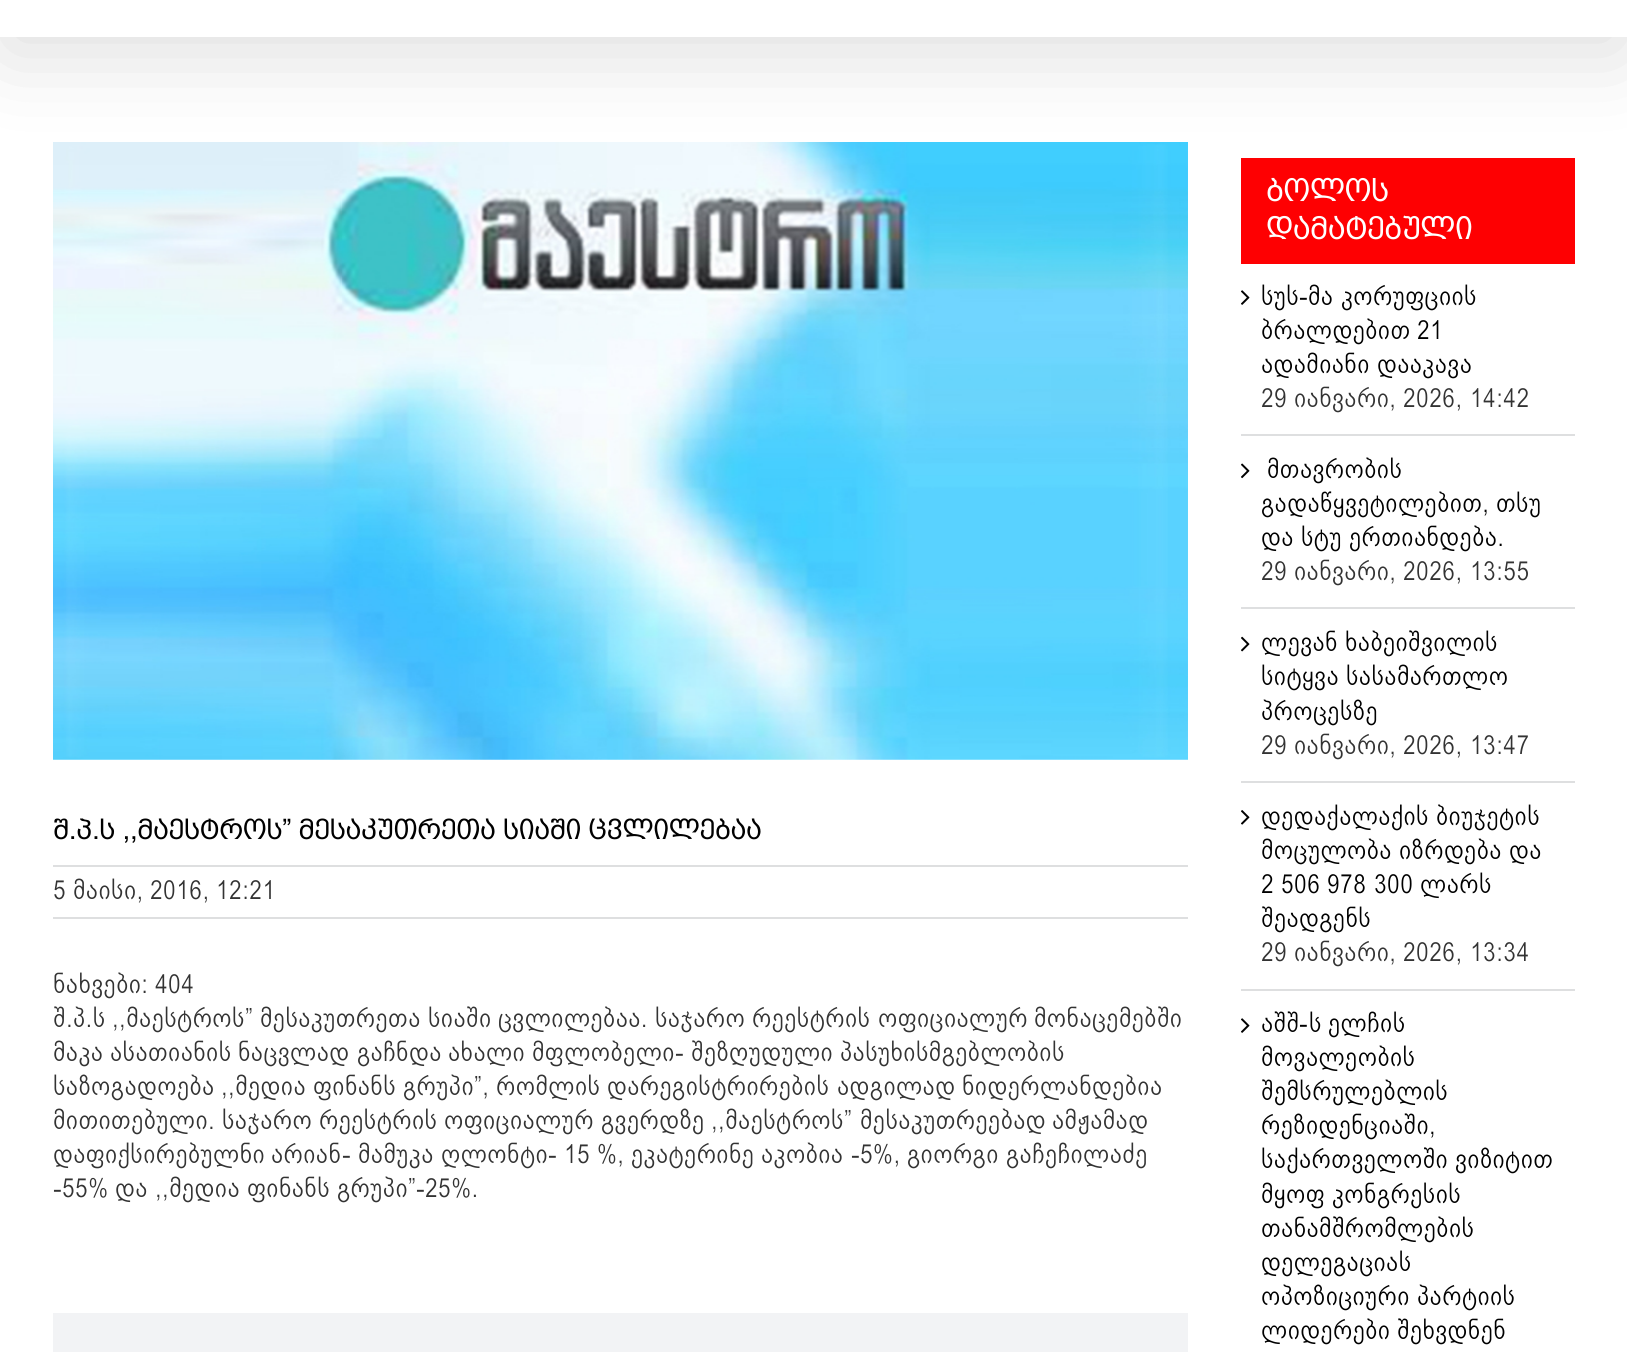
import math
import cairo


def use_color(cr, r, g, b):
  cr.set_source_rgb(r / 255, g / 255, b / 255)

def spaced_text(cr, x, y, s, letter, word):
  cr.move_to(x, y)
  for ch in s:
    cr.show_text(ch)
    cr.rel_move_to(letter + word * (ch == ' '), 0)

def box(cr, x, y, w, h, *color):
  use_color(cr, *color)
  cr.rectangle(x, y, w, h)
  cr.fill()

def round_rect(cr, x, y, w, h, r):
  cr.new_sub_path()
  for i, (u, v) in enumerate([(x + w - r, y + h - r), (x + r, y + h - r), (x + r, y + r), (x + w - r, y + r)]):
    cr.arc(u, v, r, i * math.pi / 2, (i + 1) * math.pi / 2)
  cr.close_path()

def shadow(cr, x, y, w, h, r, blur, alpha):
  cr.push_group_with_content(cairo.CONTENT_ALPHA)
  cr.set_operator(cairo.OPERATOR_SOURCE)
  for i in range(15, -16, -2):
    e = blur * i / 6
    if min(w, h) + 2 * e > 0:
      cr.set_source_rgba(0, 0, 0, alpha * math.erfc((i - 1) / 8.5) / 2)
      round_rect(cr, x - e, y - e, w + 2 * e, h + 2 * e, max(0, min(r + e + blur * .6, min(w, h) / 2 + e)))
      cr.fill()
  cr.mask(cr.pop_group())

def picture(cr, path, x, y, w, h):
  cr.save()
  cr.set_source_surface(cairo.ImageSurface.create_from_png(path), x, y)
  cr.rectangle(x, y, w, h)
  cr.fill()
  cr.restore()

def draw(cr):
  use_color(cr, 255, 255, 255)
  cr.paint()
  picture(cr, "img_01.png", 53, 142, 1135, 618)
  box(cr, 1241, 158, 334, 106, 254, 0, 2)
  use_color(cr, 0, 0, 0)
  shadow(cr, 4, -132, 1620, 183, 0, 44, 0.14)
  box(cr, 0, 0, 1627, 37, 255, 255, 255)
  box(cr, 53, 865, 1135, 2, 222, 223, 224)
  box(cr, 53, 917, 1135, 2, 222, 223, 224)
  box(cr, 53, 1313, 1135, 39, 242, 243, 245)
  box(cr, 1241, 434, 334, 2, 222, 223, 224)
  picture(cr, "img_02.png", 1241, 290, 9, 15)
  box(cr, 1241, 607, 334, 2, 222, 223, 224)
  picture(cr, "img_03.png", 1241, 463, 9, 16)
  box(cr, 1241, 781, 334, 2, 222, 223, 224)
  picture(cr, "img_04.png", 1241, 636, 9, 16)
  box(cr, 1241, 989, 334, 2, 222, 223, 224)
  picture(cr, "img_05.png", 1241, 810, 9, 15)
  picture(cr, "img_02.png", 1241, 1018, 9, 15)
  cr.select_font_face("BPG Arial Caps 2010")
  cr.set_font_size(28)
  use_color(cr, 0, 0, 0)
  spaced_text(cr, 53, 839, "შ.პ.ს ,,მაესტროს” მესაკუთრეთა სიაში ცვლილებაა", -0.4, 0)
  cr.select_font_face("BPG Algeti")
  cr.set_font_size(26.25)
  use_color(cr, 51, 51, 51)
  spaced_text(cr, 53, 899, "5", 0.4, 0)
  spaced_text(cr, 73, 899, "მაისი,", 0.4, 0)
  spaced_text(cr, 150, 899, "2016,", 0.4, 0)
  spaced_text(cr, 216, 899, "12:21", 0.4, 0)
  spaced_text(cr, 53, 993, "ნახვები:", 0.4, 0)
  spaced_text(cr, 155, 993, "404", 0.4, 0)
  spaced_text(cr, 53, 1027, "შ.პ.ს", 0.4, 0)
  spaced_text(cr, 112, 1027, ",,მაესტროს”", 0.4, 0)
  spaced_text(cr, 260, 1027, "მესაკუთრეთა", 0.4, 0)
  spaced_text(cr, 428, 1027, "სიაში", 0.4, 0)
  spaced_text(cr, 498, 1027, "ცვლილებაა.", 0.4, 0)
  spaced_text(cr, 655, 1027, "საჯარო", 0.4, 0)
  spaced_text(cr, 752, 1027, "რეესტრის", 0.4, 0)
  spaced_text(cr, 878, 1027, "ოფიციალურ", 0.4, 0)
  spaced_text(cr, 1034, 1027, "მონაცემებში", 0.4, 0)
  spaced_text(cr, 53, 1061, "მაკა", 0.4, 0)
  spaced_text(cr, 110, 1061, "ასათიანის", 0.4, 0)
  spaced_text(cr, 238, 1061, "ნაცვლად", 0.4, 0)
  spaced_text(cr, 357, 1061, "გაჩნდა", 0.4, 0)
  spaced_text(cr, 448, 1061, "ახალი", 0.4, 0)
  spaced_text(cr, 532, 1061, "მფლობელი", 0.4, 0)
  cr.select_font_face("Liberation Serif")
  spaced_text(cr, 675, 1061, "-", 0.4, 0)
  cr.select_font_face("BPG Algeti")
  spaced_text(cr, 691, 1061, "შეზღუდული", 0.4, 0)
  spaced_text(cr, 840, 1061, "პასუხისმგებლობის", 0.4, 0)
  spaced_text(cr, 53, 1095, "საზოგადოება", 0.4, 0)
  spaced_text(cr, 221, 1095, ",,მედია", 0.4, 0)
  spaced_text(cr, 313, 1095, "ფინანს", 0.4, 0)
  spaced_text(cr, 403, 1095, "გრუპი”,", 0.4, 0)
  spaced_text(cr, 496, 1095, "რომლის", 0.4, 0)
  spaced_text(cr, 607, 1095, "დარეგისტრირების", 0.4, 0)
  spaced_text(cr, 837, 1095, "ადგილად", 0.4, 0)
  spaced_text(cr, 962, 1095, "ნიდერლანდებია", 0.4, 0)
  spaced_text(cr, 53, 1129, "მითითებული.", 0.4, 0)
  spaced_text(cr, 222, 1129, "საჯარო", 0.4, 0)
  spaced_text(cr, 319, 1129, "რეესტრის", 0.4, 0)
  spaced_text(cr, 444, 1129, "ოფიციალურ", 0.4, 0)
  spaced_text(cr, 601, 1129, "გვერდზე", 0.4, 0)
  spaced_text(cr, 711, 1129, ",,მაესტროს”", 0.4, 0)
  spaced_text(cr, 860, 1129, "მესაკუთრეებად", 0.4, 0)
  spaced_text(cr, 1052, 1129, "ამჟამად", 0.4, 0)
  spaced_text(cr, 53, 1163, "დაფიქსირებულნი", 0.4, 0)
  spaced_text(cr, 271, 1163, "არიან", 0.4, 0)
  cr.select_font_face("Liberation Serif")
  spaced_text(cr, 342, 1163, "-", 0.4, 0)
  cr.select_font_face("BPG Algeti")
  spaced_text(cr, 358, 1163, "მამუკა", 0.4, 0)
  spaced_text(cr, 441, 1163, "ღლონტი", 0.4, 0)
  cr.select_font_face("Liberation Serif")
  spaced_text(cr, 548, 1163, "-", 0.4, 0)
  cr.select_font_face("BPG Algeti")
  spaced_text(cr, 564, 1163, "15", 0.4, 0)
  spaced_text(cr, 597, 1163, "%,", 0.4, 0)
  spaced_text(cr, 631, 1163, "ეკატერინე", 0.4, 0)
  spaced_text(cr, 761, 1163, "აკობია", 0.4, 0)
  cr.select_font_face("Liberation Serif")
  spaced_text(cr, 851, 1163, "-", 0.4, 0)
  cr.select_font_face("BPG Algeti")
  spaced_text(cr, 860, 1163, "5%,", 0.4, 0)
  spaced_text(cr, 907, 1163, "გიორგი", 0.4, 0)
  spaced_text(cr, 1006, 1163, "გაჩეჩილაძე", 0.4, 0)
  cr.select_font_face("Liberation Serif")
  spaced_text(cr, 53, 1197, "-", 0.4, 0)
  cr.select_font_face("BPG Algeti")
  spaced_text(cr, 62, 1197, "55%", 0.4, 0)
  spaced_text(cr, 115, 1197, "და", 0.4, 0)
  spaced_text(cr, 155, 1197, ",,მედია", 0.4, 0)
  spaced_text(cr, 247, 1197, "ფინანს", 0.4, 0)
  spaced_text(cr, 337, 1197, "გრუპი”", 0.4, 0)
  cr.select_font_face("Liberation Serif")
  spaced_text(cr, 416, 1197, "-", 0.4, 0)
  cr.select_font_face("BPG Algeti")
  spaced_text(cr, 425, 1197, "25%.", 0.4, 0)
  cr.select_font_face("BPG Arial Caps 2010")
  cr.set_font_size(31.5)
  use_color(cr, 255, 255, 255)
  spaced_text(cr, 1266, 201, "ბოლოს", -0.5, 0)
  spaced_text(cr, 1266, 239, "დამატებული", -0.5, 0)
  cr.select_font_face("BPG Algeti")
  cr.set_font_size(26.25)
  use_color(cr, 0, 0, 0)
  spaced_text(cr, 1261, 305, "სუს", 0.4, 0)
  cr.select_font_face("Liberation Serif")
  spaced_text(cr, 1299, 305, "-", 0.4, 0)
  cr.select_font_face("BPG Algeti")
  spaced_text(cr, 1308, 305, "მა", 0.4, 0)
  spaced_text(cr, 1341, 305, "კორუფციის", 0.4, 0)
  spaced_text(cr, 1261, 339, "ბრალდებით", 0.4, 0)
  spaced_text(cr, 1417, 339, "21", 0.4, 0)
  spaced_text(cr, 1261, 373, "ადამიანი", 0.4, 0)
  spaced_text(cr, 1377, 373, "დააკავა", 0.4, 0)
  use_color(cr, 51, 51, 51)
  spaced_text(cr, 1261, 407, "29", 0.4, 0)
  spaced_text(cr, 1294, 407, "იანვარი,", 0.4, 0)
  spaced_text(cr, 1403, 407, "2026,", 0.4, 0)
  spaced_text(cr, 1470, 407, "14:42", 0.4, 0)
  use_color(cr, 0, 0, 0)
  spaced_text(cr, 1267, 478, "მთავრობის", 0.4, 0)
  spaced_text(cr, 1261, 512, "გადაწყვეტილებით,", 0.4, 0)
  spaced_text(cr, 1496, 512, "თსუ", 0.4, 0)
  spaced_text(cr, 1261, 546, "და", 0.4, 0)
  spaced_text(cr, 1301, 546, "სტუ", 0.4, 0)
  spaced_text(cr, 1349, 546, "ერთიანდება.", 0.4, 0)
  use_color(cr, 51, 51, 51)
  spaced_text(cr, 1261, 580, "29", 0.4, 0)
  spaced_text(cr, 1294, 580, "იანვარი,", 0.4, 0)
  spaced_text(cr, 1403, 580, "2026,", 0.4, 0)
  spaced_text(cr, 1470, 580, "13:55", 0.4, 0)
  use_color(cr, 0, 0, 0)
  spaced_text(cr, 1261, 651, "ლევან", 0.4, 0)
  spaced_text(cr, 1345, 651, "ხაბეიშვილის", 0.4, 0)
  spaced_text(cr, 1261, 685, "სიტყვა", 0.4, 0)
  spaced_text(cr, 1346, 685, "სასამართლო", 0.4, 0)
  spaced_text(cr, 1261, 720, "პროცესზე", 0.4, 0)
  use_color(cr, 51, 51, 51)
  spaced_text(cr, 1261, 754, "29", 0.4, 0)
  spaced_text(cr, 1294, 754, "იანვარი,", 0.4, 0)
  spaced_text(cr, 1403, 754, "2026,", 0.4, 0)
  spaced_text(cr, 1470, 754, "13:47", 0.4, 0)
  use_color(cr, 0, 0, 0)
  spaced_text(cr, 1261, 825, "დედაქალაქის", 0.4, 0)
  spaced_text(cr, 1436, 825, "ბიუჯეტის", 0.4, 0)
  spaced_text(cr, 1261, 859, "მოცულობა", 0.4, 0)
  spaced_text(cr, 1399, 859, "იზრდება", 0.4, 0)
  spaced_text(cr, 1509, 859, "და", 0.4, 0)
  spaced_text(cr, 1261, 893, "2", 0.4, 0)
  spaced_text(cr, 1281, 893, "506", 0.4, 0)
  spaced_text(cr, 1327, 893, "978", 0.4, 0)
  spaced_text(cr, 1374, 893, "300", 0.4, 0)
  spaced_text(cr, 1420, 893, "ლარს", 0.4, 0)
  spaced_text(cr, 1261, 927, "შეადგენს", 0.4, 0)
  use_color(cr, 51, 51, 51)
  spaced_text(cr, 1261, 961, "29", 0.4, 0)
  spaced_text(cr, 1294, 961, "იანვარი,", 0.4, 0)
  spaced_text(cr, 1403, 961, "2026,", 0.4, 0)
  spaced_text(cr, 1470, 961, "13:34", 0.4, 0)
  use_color(cr, 0, 0, 0)
  spaced_text(cr, 1261, 1032, "აშშ", 0.4, 0)
  cr.select_font_face("Liberation Serif")
  spaced_text(cr, 1299, 1032, "-", 0.4, 0)
  cr.select_font_face("BPG Algeti")
  spaced_text(cr, 1309, 1032, "ს", 0.4, 0)
  spaced_text(cr, 1328, 1032, "ელჩის", 0.4, 0)
  spaced_text(cr, 1261, 1066, "მოვალეობის", 0.4, 0)
  spaced_text(cr, 1261, 1100, "შემსრულებლის", 0.4, 0)
  spaced_text(cr, 1261, 1134, "რეზიდენციაში,", 0.4, 0)
  spaced_text(cr, 1261, 1168, "საქართველოში", 0.4, 0)
  spaced_text(cr, 1455, 1168, "ვიზიტით", 0.4, 0)
  spaced_text(cr, 1261, 1203, "მყოფ", 0.4, 0)
  spaced_text(cr, 1332, 1203, "კონგრესის", 0.4, 0)
  spaced_text(cr, 1261, 1237, "თანამშრომლების", 0.4, 0)
  spaced_text(cr, 1261, 1271, "დელეგაციას", 0.4, 0)
  spaced_text(cr, 1261, 1305, "ოპოზიციური", 0.4, 0)
  spaced_text(cr, 1417, 1305, "პარტიის", 0.4, 0)
  spaced_text(cr, 1261, 1339, "ლიდერები", 0.4, 0)
  spaced_text(cr, 1397, 1339, "შეხვდნენ", 0.4, 0)


surface = cairo.ImageSurface(cairo.FORMAT_RGB24, 1627, 1352)
cr = cairo.Context(surface)
options = cairo.FontOptions()
options.set_hint_metrics(cairo.HINT_METRICS_OFF)
options.set_hint_style(cairo.HINT_STYLE_NONE)
cr.set_font_options(options)
cr.set_miter_limit(4)
draw(cr)
surface.write_to_png("out.png")
